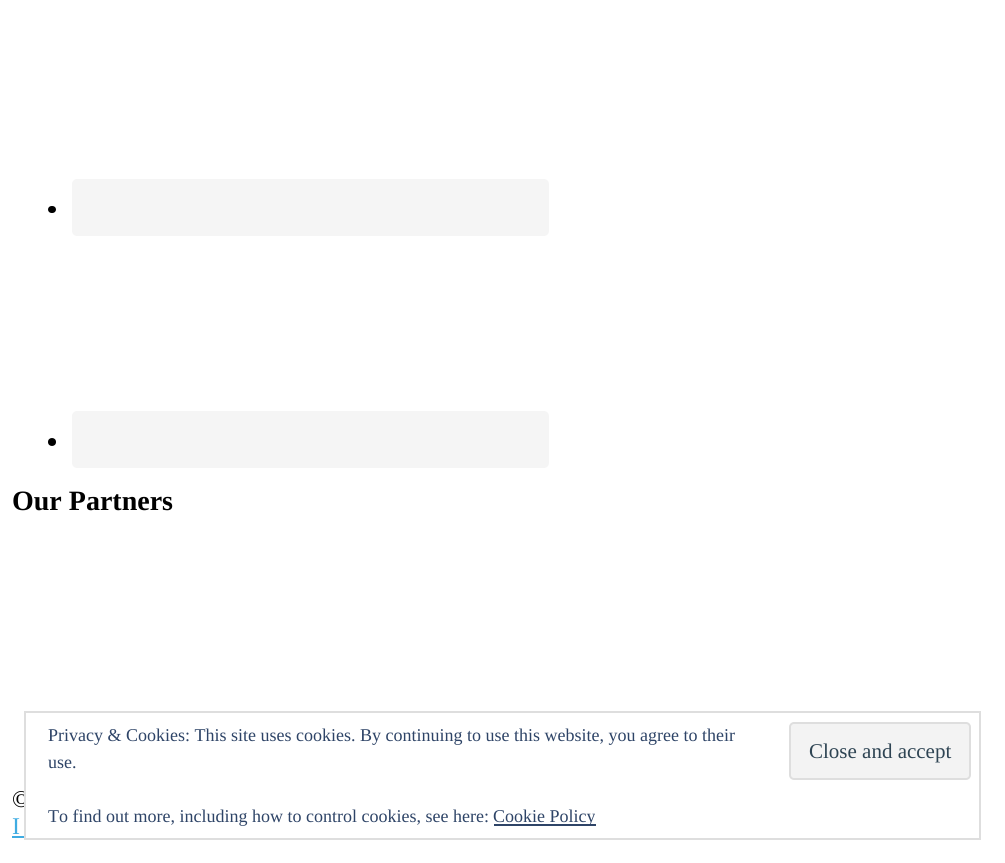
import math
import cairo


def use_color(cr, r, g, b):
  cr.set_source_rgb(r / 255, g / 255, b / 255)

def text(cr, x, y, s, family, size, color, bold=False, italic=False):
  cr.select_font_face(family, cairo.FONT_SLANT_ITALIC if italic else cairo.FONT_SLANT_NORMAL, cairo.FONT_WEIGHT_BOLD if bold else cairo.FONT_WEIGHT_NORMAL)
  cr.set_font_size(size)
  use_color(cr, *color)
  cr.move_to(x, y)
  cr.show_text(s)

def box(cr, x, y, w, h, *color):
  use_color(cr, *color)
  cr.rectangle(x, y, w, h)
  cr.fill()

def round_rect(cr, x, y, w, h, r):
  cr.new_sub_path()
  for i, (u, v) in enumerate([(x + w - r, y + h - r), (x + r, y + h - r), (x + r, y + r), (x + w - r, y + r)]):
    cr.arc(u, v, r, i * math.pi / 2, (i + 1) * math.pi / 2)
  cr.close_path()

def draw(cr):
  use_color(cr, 255, 255, 255)
  cr.paint()
  use_color(cr, 0, 0, 0)
  round_rect(cr, 48, 206, 8, 7, 3.5)
  cr.fill()
  use_color(cr, 245, 245, 245)
  round_rect(cr, 72, 179, 477, 57, 5)
  cr.fill()
  use_color(cr, 0, 0, 0)
  cr.arc(52, 442, 4, 0, 2 * math.pi)
  cr.fill()
  use_color(cr, 245, 245, 245)
  round_rect(cr, 72, 411, 477, 57, 5)
  cr.fill()
  box(cr, 12, 836, 12, 2, 63, 172, 226)
  text(cr, 12, 510, "Our Partners", "Liberation Serif", 28, (0, 0, 0), bold=True)
  text(cr, 12, 807, "©", "Liberation Serif", 24, (0, 0, 0))
  text(cr, 12, 834, "I", "Liberation Serif", 24, (63, 172, 226))
  box(cr, 26, 792, 4, 14, 255, 255, 255)
  cr.rectangle(25, 712, 955, 127)
  use_color(cr, 222, 222, 222)
  cr.stroke()
  text(cr, 48, 741, "Privacy & Cookies: This site uses cookies. By continuing to use this website, you agree to their", "Liberation Serif", 18, (46, 68, 103))
  use_color(cr, 243, 243, 243)
  round_rect(cr, 790, 723, 180, 56, 4)
  cr.fill_preserve()
  use_color(cr, 222, 222, 222)
  cr.stroke()
  text(cr, 809, 758, "Close and accept", "Liberation Serif", 21, (46, 68, 83))
  text(cr, 48, 768, "use.", "Liberation Serif", 18, (46, 68, 103))
  text(cr, 48, 822, "To find out more, including how to control cookies, see here:", "Liberation Serif", 18, (46, 68, 103))
  box(cr, 494, 824, 102, 2, 46, 68, 103)
  text(cr, 493, 822, "Cookie Policy", "Liberation Serif", 18, (46, 68, 103))


surface = cairo.ImageSurface(cairo.FORMAT_RGB24, 1005, 863)
cr = cairo.Context(surface)
options = cairo.FontOptions()
options.set_hint_metrics(cairo.HINT_METRICS_OFF)
options.set_hint_style(cairo.HINT_STYLE_NONE)
cr.set_font_options(options)
cr.set_miter_limit(4)
draw(cr)
surface.write_to_png("out.png")
